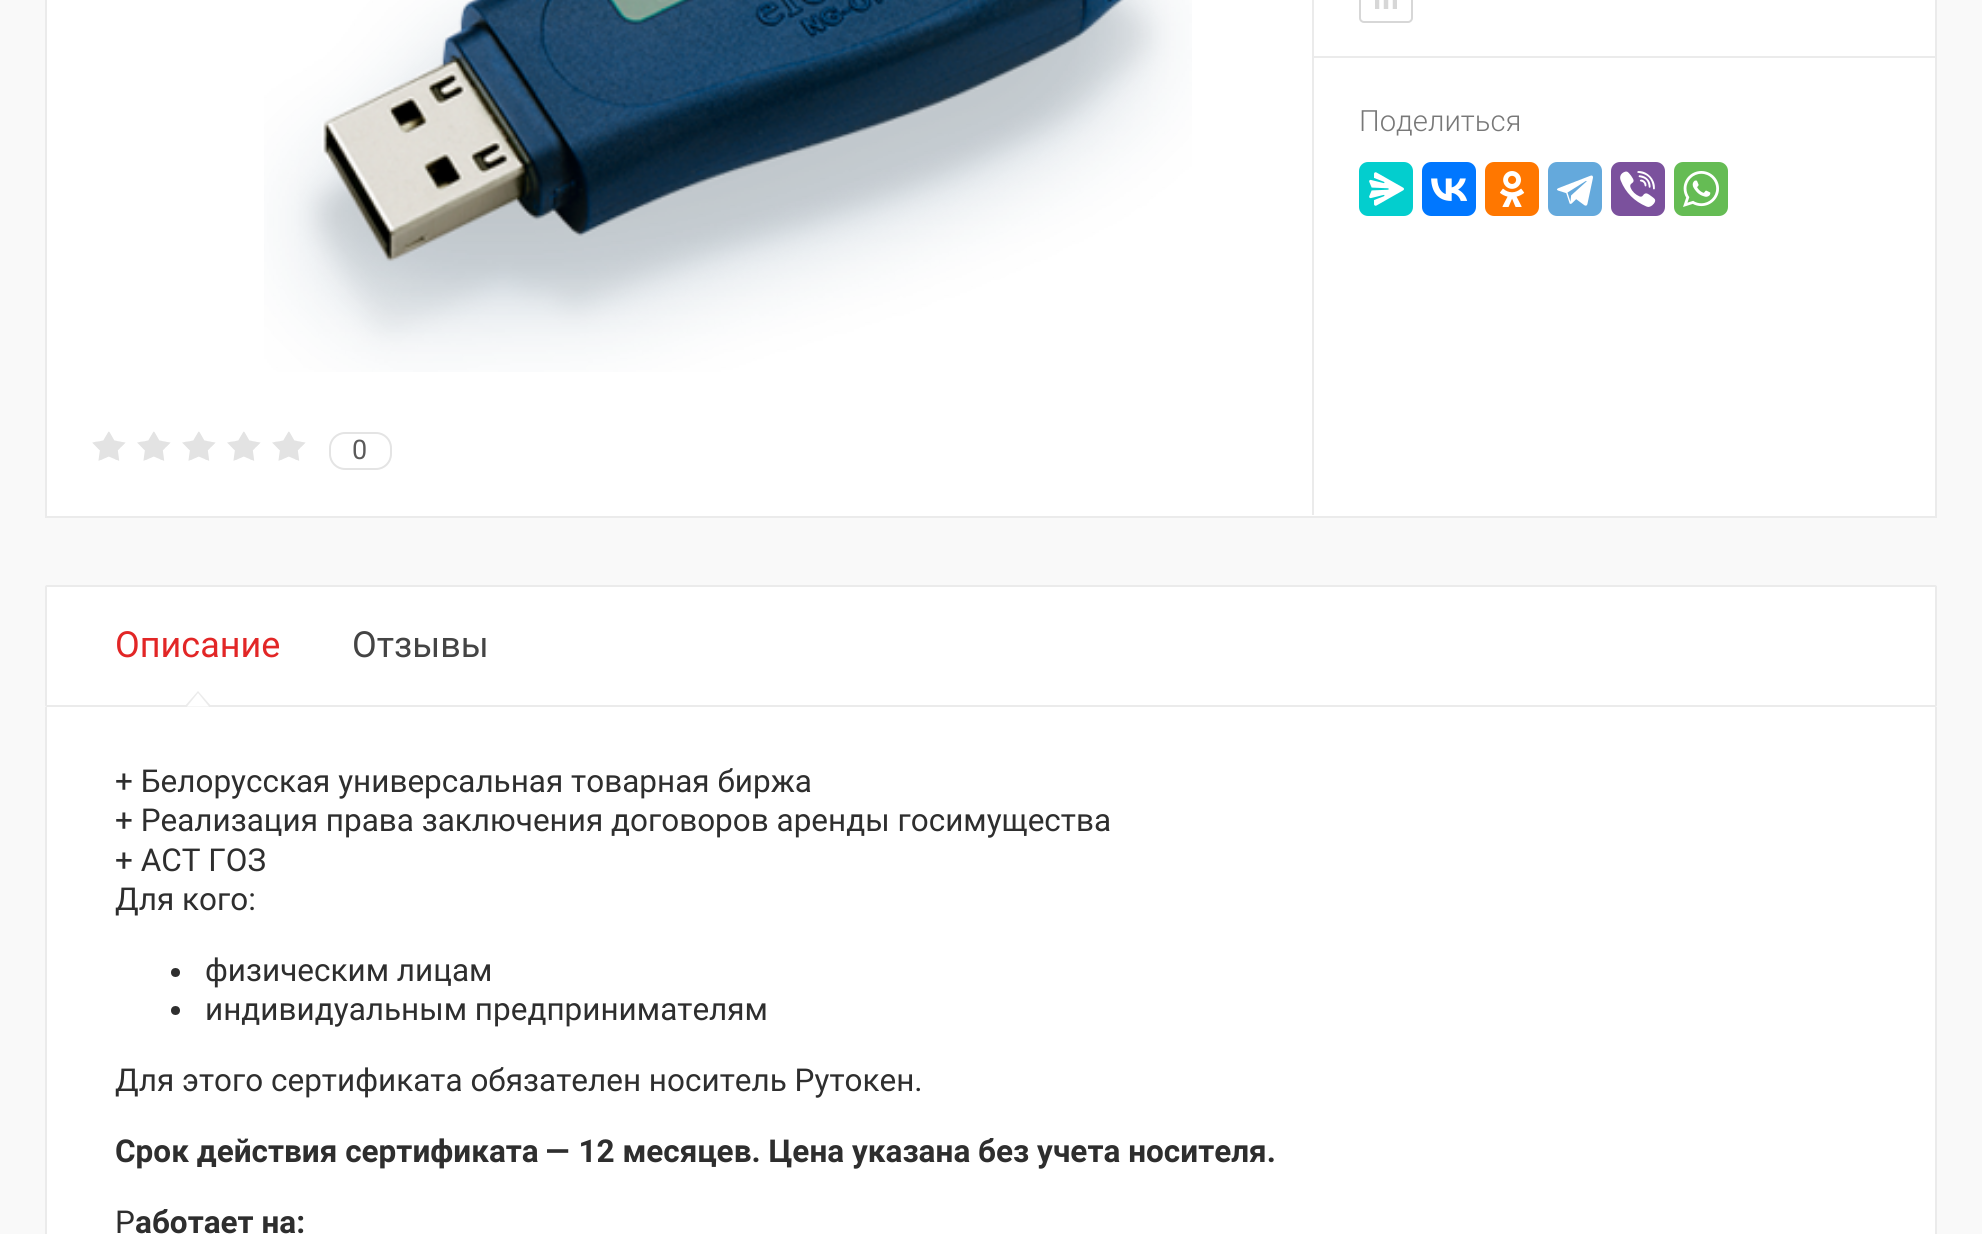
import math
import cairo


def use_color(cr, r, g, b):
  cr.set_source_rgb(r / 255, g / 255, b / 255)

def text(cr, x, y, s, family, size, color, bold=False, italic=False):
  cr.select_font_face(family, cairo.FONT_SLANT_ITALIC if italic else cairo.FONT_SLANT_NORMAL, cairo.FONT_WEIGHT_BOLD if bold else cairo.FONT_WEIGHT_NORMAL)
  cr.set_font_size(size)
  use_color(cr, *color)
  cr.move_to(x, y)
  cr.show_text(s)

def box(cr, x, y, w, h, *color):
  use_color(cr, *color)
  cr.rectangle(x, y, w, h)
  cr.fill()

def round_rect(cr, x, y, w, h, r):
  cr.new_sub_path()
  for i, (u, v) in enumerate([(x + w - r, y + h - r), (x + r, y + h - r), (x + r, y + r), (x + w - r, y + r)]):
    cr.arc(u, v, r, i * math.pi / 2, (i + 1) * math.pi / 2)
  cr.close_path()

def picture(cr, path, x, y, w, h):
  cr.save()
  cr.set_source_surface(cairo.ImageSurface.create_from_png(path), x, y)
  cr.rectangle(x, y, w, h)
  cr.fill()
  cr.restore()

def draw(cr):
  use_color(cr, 249, 249, 249)
  cr.paint()
  use_color(cr, 255, 255, 255)
  cr.rectangle(46, -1, 1890, 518)
  cr.fill_preserve()
  use_color(cr, 235, 235, 235)
  cr.stroke()
  picture(cr, "img_01.png", 1375, 0, 22, 9)
  round_rect(cr, 1360, -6, 52, 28, 4)
  use_color(cr, 215, 215, 215)
  cr.stroke()
  box(cr, 1314, 56, 621, 2, 235, 235, 235)
  use_color(cr, 3, 206, 206)
  round_rect(cr, 1359, 162, 54, 54, 9)
  cr.fill()
  picture(cr, "img_02.png", 1369, 172, 35, 34)
  use_color(cr, 0, 119, 255)
  round_rect(cr, 1422, 162, 54, 54, 9)
  cr.fill()
  picture(cr, "img_03.png", 1431, 178, 37, 23)
  use_color(cr, 255, 119, 0)
  round_rect(cr, 1485, 162, 54, 54, 9)
  cr.fill()
  picture(cr, "img_04.png", 1500, 171, 25, 36)
  use_color(cr, 100, 169, 220)
  round_rect(cr, 1548, 162, 54, 54, 9)
  cr.fill()
  picture(cr, "img_05.png", 1557, 175, 36, 31)
  use_color(cr, 123, 81, 157)
  round_rect(cr, 1611, 162, 54, 54, 9)
  cr.fill()
  picture(cr, "img_06.png", 1620, 171, 36, 36)
  use_color(cr, 101, 188, 84)
  round_rect(cr, 1674, 162, 54, 54, 9)
  cr.fill()
  picture(cr, "img_07.png", 1683, 171, 36, 36)
  box(cr, 1312, 0, 2, 515, 235, 235, 235)
  picture(cr, "img_08.png", 264, 0, 928, 372)
  picture(cr, "img_09.png", 92, 431, 214, 30)
  round_rect(cr, 330, 433, 61, 36, 15)
  use_color(cr, 228, 228, 228)
  cr.stroke()
  use_color(cr, 255, 255, 255)
  round_rect(cr, 46, 586, 1890, 120, 1)
  cr.fill_preserve()
  use_color(cr, 235, 235, 235)
  cr.stroke()
  cr.new_path()
  cr.move_to(211.5, 706.5)
  cr.line_to(184.5, 706.5)
  cr.line_to(198, 691)
  cr.close_path()
  cr.fill()
  use_color(cr, 255, 255, 255)
  cr.new_path()
  cr.move_to(209, 706.5)
  cr.line_to(187, 706.5)
  cr.line_to(198, 693)
  cr.close_path()
  cr.fill()
  box(cr, 47, 707, 1888, 527, 255, 255, 255)
  box(cr, 1935, 707, 2, 527, 235, 235, 235)
  box(cr, 45, 707, 2, 527, 235, 235, 235)
  use_color(cr, 46, 46, 46)
  cr.arc(175.5, 972.5, 4.5, 0, 2 * math.pi)
  cr.fill()
  cr.arc(175.5, 1010.5, 4.5, 0, 2 * math.pi)
  cr.fill()
  text(cr, 1359, 131, "Поделиться", "Roboto Light", 29.25, (120, 120, 120))
  text(cr, 352, 459, "0", "Roboto", 27, (91, 90, 90))
  text(cr, 115, 657, "Описание", "Roboto", 36, (226, 38, 38))
  text(cr, 352, 657, "Отзывы", "Roboto", 36, (68, 68, 68))
  text(cr, 115, 792, "+ Белорусская универсальная товарная биржа", "Roboto", 31.5, (46, 46, 46))
  text(cr, 115, 831, "+ Реализация права заключения договоров аренды госимущества", "Roboto", 31.5, (46, 46, 46))
  text(cr, 115, 871, "+ АСТ ГОЗ", "Roboto", 31.5, (46, 46, 46))
  text(cr, 115, 910, "Для кого:", "Roboto", 31.5, (46, 46, 46))
  text(cr, 205, 981, "физическим лицам", "Roboto", 31.5, (46, 46, 46))
  text(cr, 205, 1020, "индивидуальным предпринимателям", "Roboto", 31.5, (46, 46, 46))
  text(cr, 115, 1091, "Для этого сертификата обязателен носитель Рутокен.", "Roboto", 31.5, (46, 46, 46))
  text(cr, 115, 1162, "Срок действия сертификата — 12 месяцев. Цена указана без учета носителя.", "Roboto", 31.5, (46, 46, 46), bold=True)
  text(cr, 115, 1233, "Р", "Roboto", 31.5, (46, 46, 46))
  text(cr, 135, 1233, "аботает на:", "Roboto", 31.5, (46, 46, 46), bold=True)


surface = cairo.ImageSurface(cairo.FORMAT_RGB24, 1982, 1234)
cr = cairo.Context(surface)
options = cairo.FontOptions()
options.set_hint_metrics(cairo.HINT_METRICS_OFF)
options.set_hint_style(cairo.HINT_STYLE_NONE)
cr.set_font_options(options)
cr.set_miter_limit(4)
draw(cr)
surface.write_to_png("out.png")
